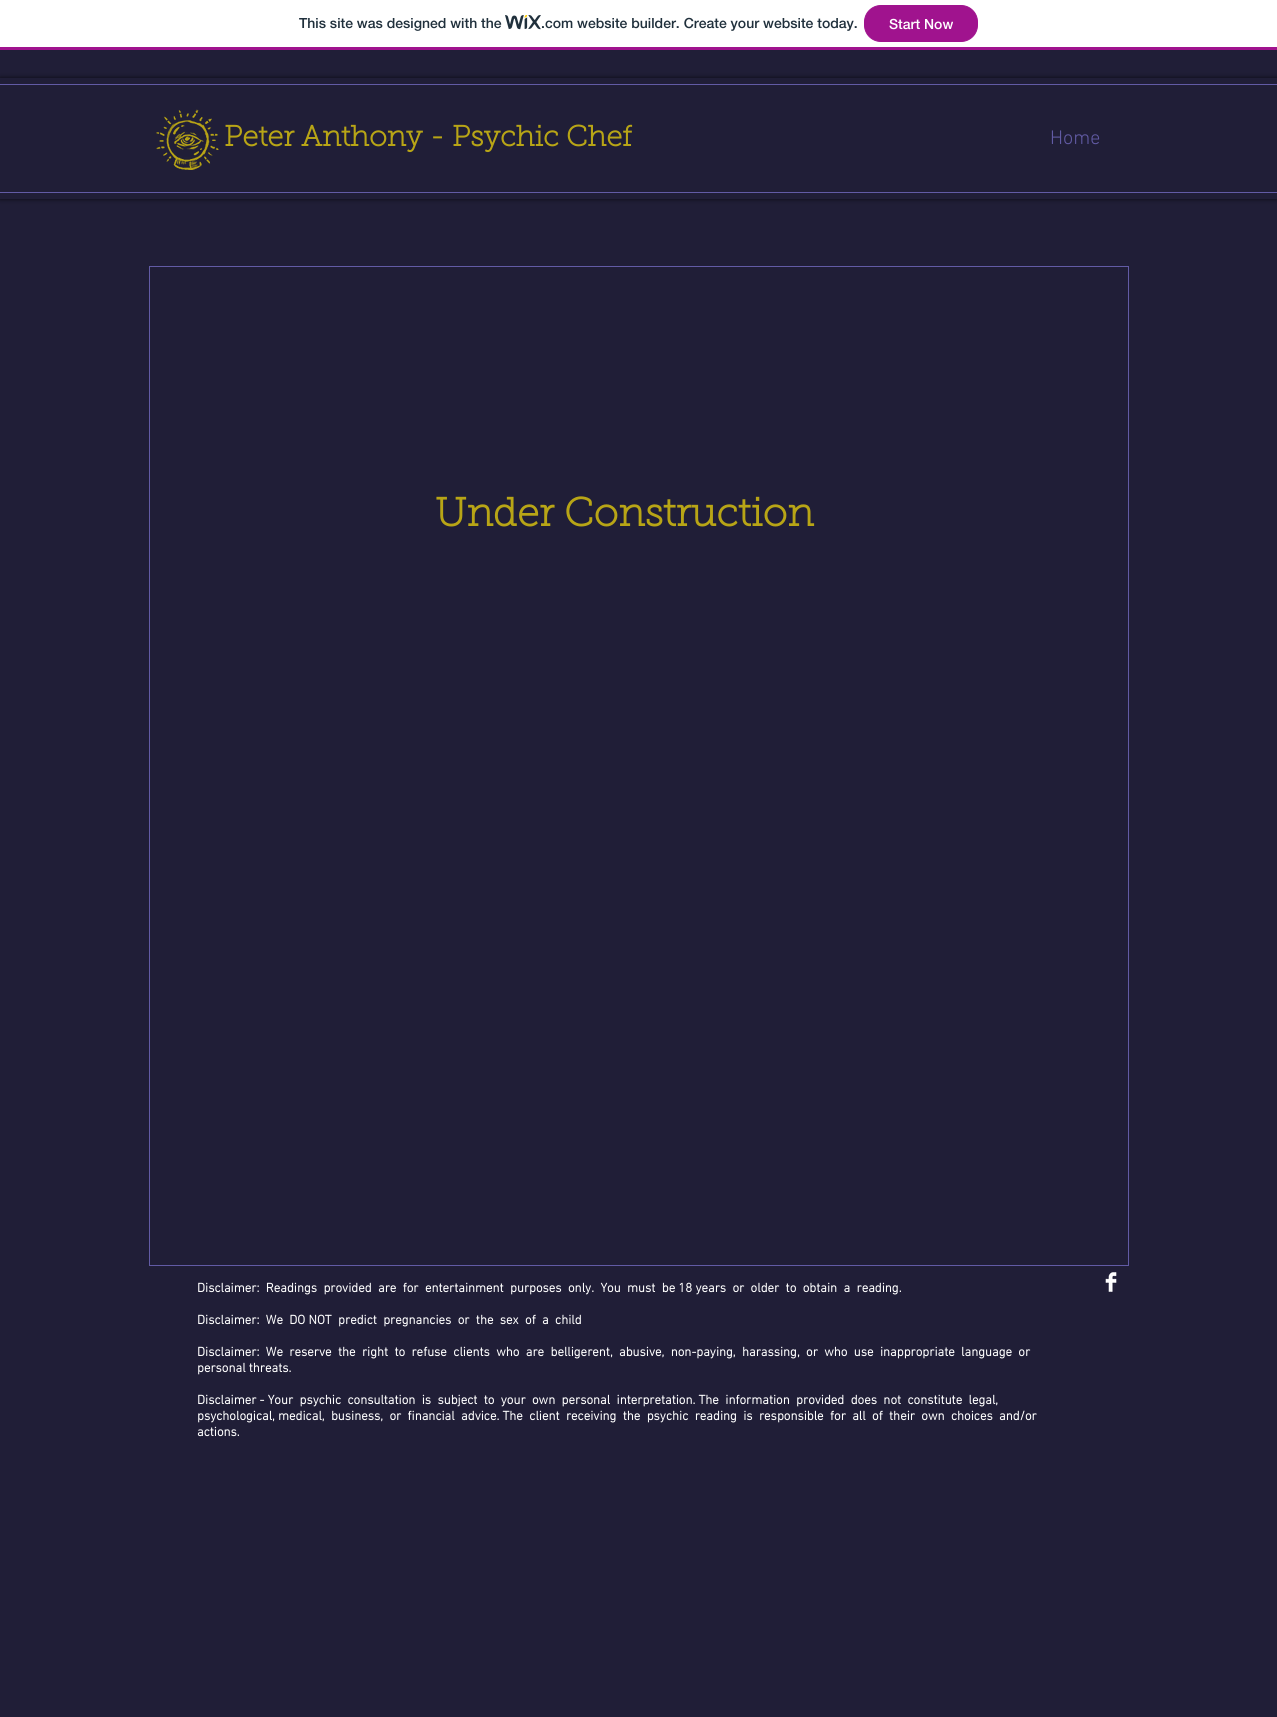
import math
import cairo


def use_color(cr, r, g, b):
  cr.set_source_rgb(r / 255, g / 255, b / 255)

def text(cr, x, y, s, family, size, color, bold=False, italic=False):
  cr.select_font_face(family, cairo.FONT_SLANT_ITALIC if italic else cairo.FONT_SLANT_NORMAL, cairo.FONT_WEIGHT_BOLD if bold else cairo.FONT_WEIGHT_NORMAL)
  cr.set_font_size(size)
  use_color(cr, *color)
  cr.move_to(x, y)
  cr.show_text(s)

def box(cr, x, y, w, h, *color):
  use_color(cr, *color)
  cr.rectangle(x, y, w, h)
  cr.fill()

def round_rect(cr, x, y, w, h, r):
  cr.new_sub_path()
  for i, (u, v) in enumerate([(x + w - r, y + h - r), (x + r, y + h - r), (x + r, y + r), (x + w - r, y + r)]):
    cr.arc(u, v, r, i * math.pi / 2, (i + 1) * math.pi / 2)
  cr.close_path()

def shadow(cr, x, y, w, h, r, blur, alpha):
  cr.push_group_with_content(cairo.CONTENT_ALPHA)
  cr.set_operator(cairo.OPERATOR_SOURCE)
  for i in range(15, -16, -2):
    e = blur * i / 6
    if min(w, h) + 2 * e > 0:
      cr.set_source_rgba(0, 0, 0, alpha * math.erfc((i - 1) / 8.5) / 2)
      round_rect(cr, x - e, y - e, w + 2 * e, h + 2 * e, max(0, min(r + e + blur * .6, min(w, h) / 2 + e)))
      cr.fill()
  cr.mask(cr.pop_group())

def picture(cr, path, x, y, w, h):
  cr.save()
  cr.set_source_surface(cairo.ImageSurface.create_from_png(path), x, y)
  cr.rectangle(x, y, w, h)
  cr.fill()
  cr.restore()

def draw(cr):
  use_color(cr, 255, 255, 255)
  cr.paint()
  box(cr, 0, 47, 1277, 3, 160, 19, 142)
  picture(cr, "img_01.png", 505, 15, 36, 15)
  round_rect(cr, 864.5, 5.5, 113, 36, 16.5)
  cr.fill_preserve()
  cr.set_line_width(1)
  cr.stroke()
  box(cr, 0, 50, 1277, 1667, 32, 30, 55)
  cr.save()
  cr.set_fill_rule(cairo.FILL_RULE_EVEN_ODD)
  cr.new_path()
  cr.move_to(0, 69)
  cr.line_to(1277, 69)
  cr.line_to(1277, 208)
  cr.line_to(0, 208)
  cr.close_path()
  cr.move_to(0, 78)
  cr.line_to(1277, 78)
  cr.line_to(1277, 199)
  cr.line_to(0, 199)
  cr.close_path()
  cr.clip()
  use_color(cr, 0, 0, 0)
  shadow(cr, 0, 78, 1277, 121, 0, 2.5, 0.7)
  cr.restore()
  box(cr, 0, 84, 1277, 1, 98, 91, 165)
  box(cr, 0, 192, 1277, 1, 98, 91, 165)
  picture(cr, "img_02.png", 156, 109, 63, 61)
  cr.rectangle(149.5, 266.5, 979, 999)
  cr.stroke()
  picture(cr, "img_03.png", 1105, 1272, 12, 20)
  text(cr, 299, 28, "This site was designed with the", "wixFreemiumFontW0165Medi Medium", 14, (32, 48, 60))
  text(cr, 541, 28, ".com website builder. Create your website today.", "wixFreemiumFontW0165Medi Medium", 14, (32, 48, 60))
  text(cr, 889, 29, "Start Now", "wixFreemiumFontW0165Medi Medium", 14, (255, 255, 255))
  text(cr, 224, 146, "Peter Anthony - Psychic Chef", "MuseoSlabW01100", 29, (184, 165, 22), bold=True)
  text(cr, 1050, 144, "Home", "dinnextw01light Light", 20, (98, 91, 165))
  text(cr, 435, 526, "Under Construction", "MuseoSlabW01100", 40, (184, 165, 22), bold=True)
  text(cr, 197, 1292, "Disclaimer:  Readings  provided  are  for  entertainment  purposes  only.  You  must  be 18 years  or  older  to  obtain  a  reading.", "dinnextw01light", 13, (255, 255, 255), bold=True)
  text(cr, 197, 1324, "Disclaimer:  We  DO NOT  predict  pregnancies  or  the  sex  of  a  child", "dinnextw01light", 13, (255, 255, 255), bold=True)
  text(cr, 197, 1356, "Disclaimer:  We  reserve  the  right  to  refuse  clients  who  are  belligerent,  abusive,  non-paying,  harassing,  or  who  use  inappropriate  language  or", "dinnextw01light", 13, (255, 255, 255), bold=True)
  text(cr, 197, 1372, "personal threats.", "dinnextw01light", 13, (255, 255, 255), bold=True)
  text(cr, 197, 1404, "Disclaimer - Your  psychic  consultation  is  subject  to  your  own  personal  interpretation. The  information  provided  does  not  constitute  legal,", "dinnextw01light", 13, (255, 255, 255), bold=True)
  text(cr, 197, 1420, "psychological, medical,  business,  or  financial  advice. The  client  receiving  the  psychic  reading  is  responsible  for  all  of  their  own  choices  and/or", "dinnextw01light", 13, (255, 255, 255), bold=True)
  text(cr, 197, 1436, "actions.", "dinnextw01light", 13, (255, 255, 255), bold=True)


surface = cairo.ImageSurface(cairo.FORMAT_RGB24, 1277, 1717)
cr = cairo.Context(surface)
options = cairo.FontOptions()
options.set_hint_metrics(cairo.HINT_METRICS_OFF)
options.set_hint_style(cairo.HINT_STYLE_NONE)
cr.set_font_options(options)
cr.set_miter_limit(4)
draw(cr)
surface.write_to_png("out.png")
